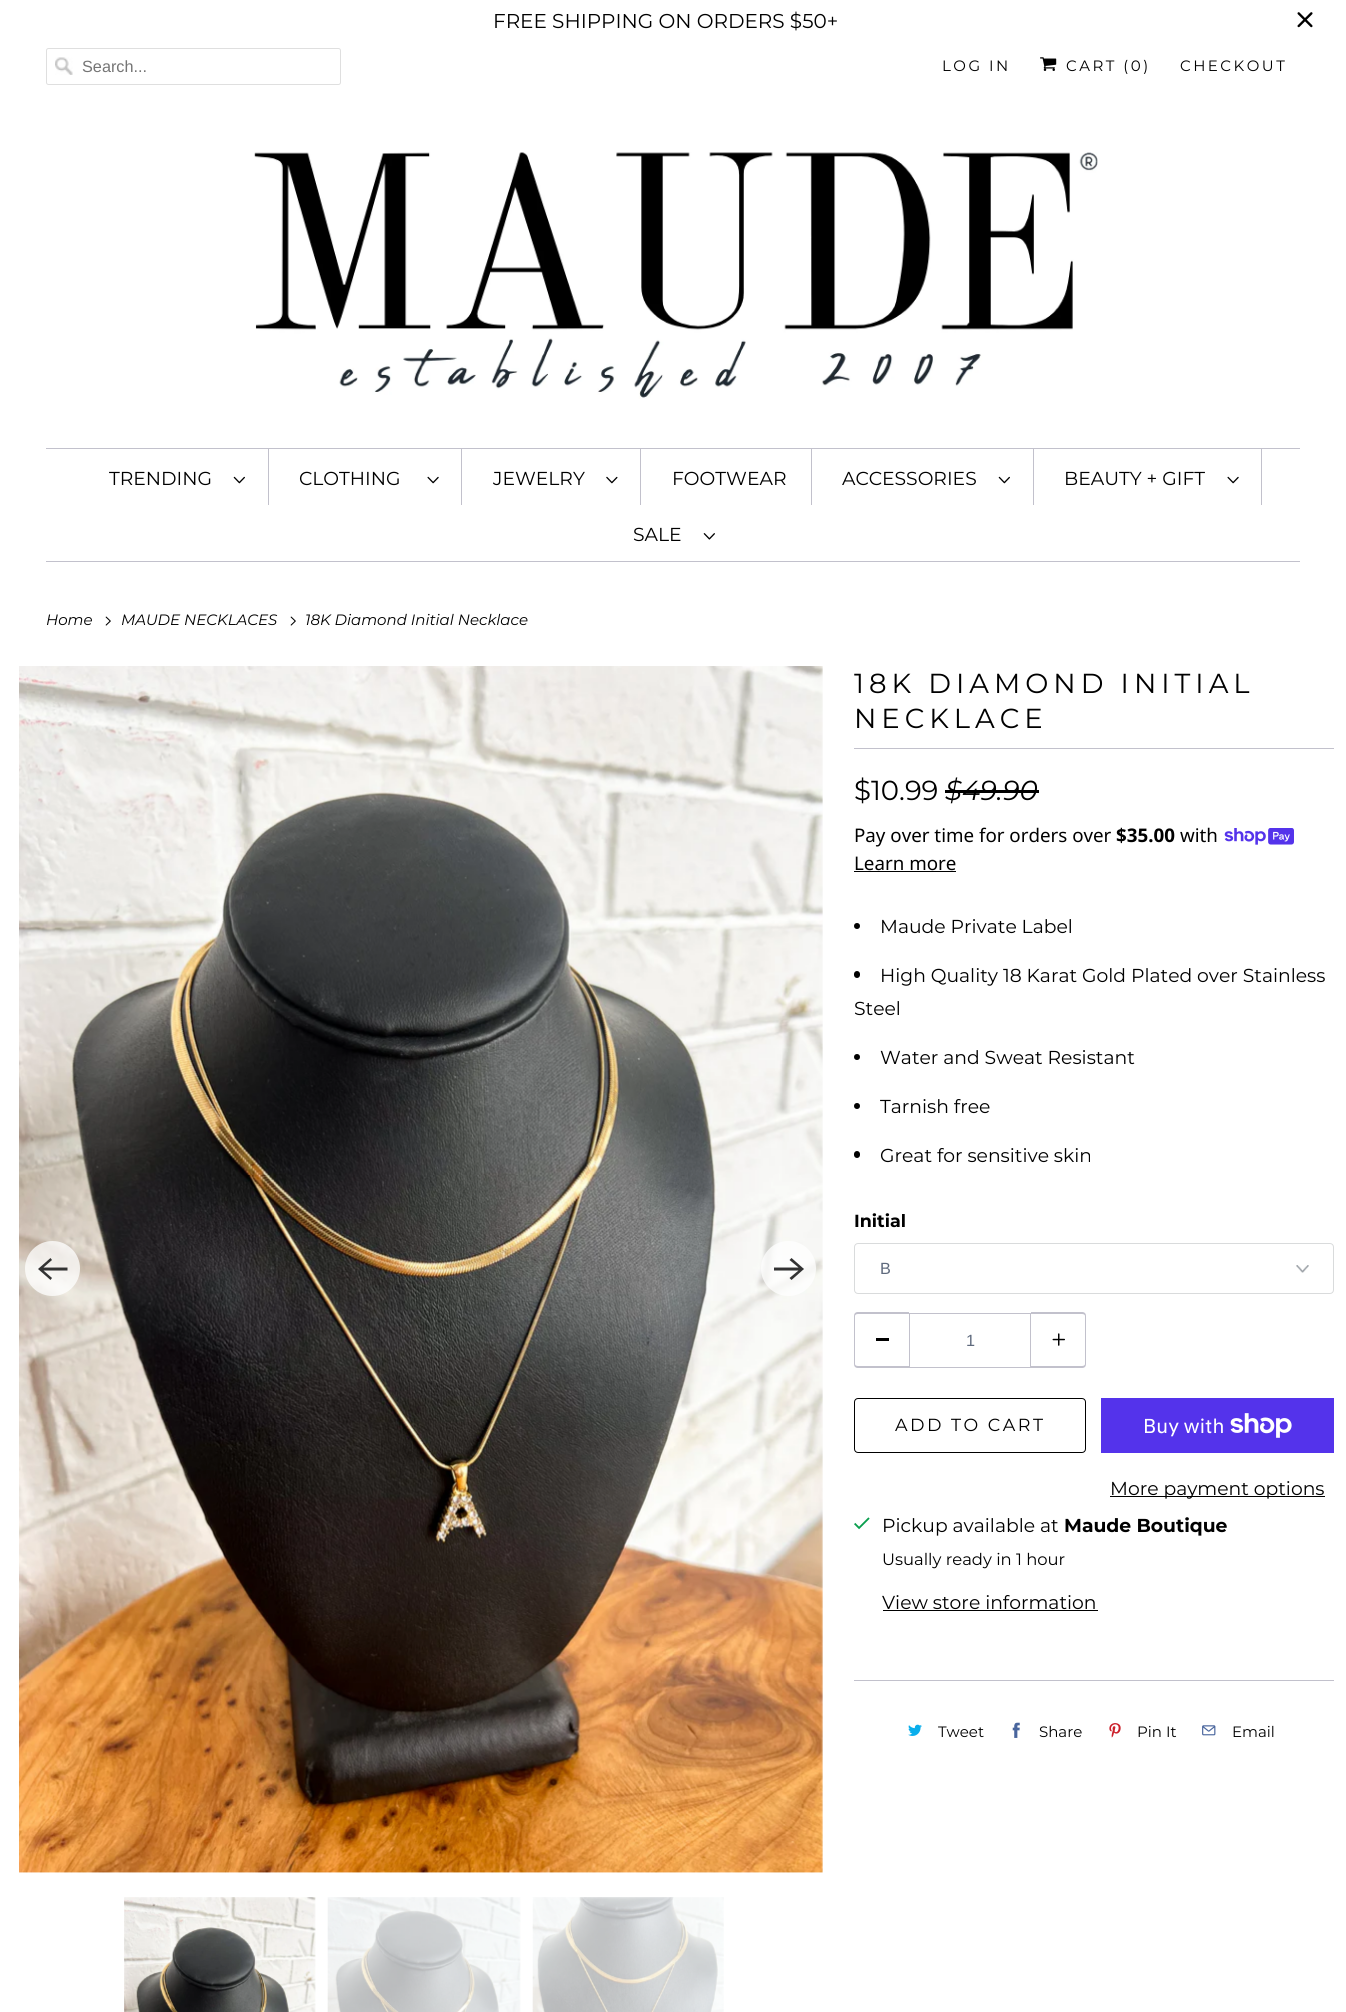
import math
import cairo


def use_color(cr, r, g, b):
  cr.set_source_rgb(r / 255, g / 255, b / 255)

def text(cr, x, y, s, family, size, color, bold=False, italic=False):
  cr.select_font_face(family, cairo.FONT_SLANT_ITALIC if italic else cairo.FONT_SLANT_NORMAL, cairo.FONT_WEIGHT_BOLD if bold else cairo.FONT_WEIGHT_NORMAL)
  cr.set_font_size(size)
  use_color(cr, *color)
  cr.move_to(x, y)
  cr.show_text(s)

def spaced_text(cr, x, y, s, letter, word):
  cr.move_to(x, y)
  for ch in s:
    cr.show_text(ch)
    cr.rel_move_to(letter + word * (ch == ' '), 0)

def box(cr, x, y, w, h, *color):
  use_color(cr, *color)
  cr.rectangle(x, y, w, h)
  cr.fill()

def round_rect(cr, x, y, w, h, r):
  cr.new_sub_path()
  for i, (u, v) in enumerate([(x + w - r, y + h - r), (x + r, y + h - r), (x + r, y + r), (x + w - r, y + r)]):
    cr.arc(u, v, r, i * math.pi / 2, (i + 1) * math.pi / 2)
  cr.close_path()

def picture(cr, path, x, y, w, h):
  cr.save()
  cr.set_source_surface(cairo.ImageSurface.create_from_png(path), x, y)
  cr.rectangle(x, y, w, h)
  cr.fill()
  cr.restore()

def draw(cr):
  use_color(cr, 255, 255, 255)
  cr.paint()
  picture(cr, "img_01.png", 1297, 12, 16, 16)
  picture(cr, "img_02.png", 55, 57, 18, 18)
  round_rect(cr, 46.5, 48.5, 294, 36, 2)
  use_color(cr, 223, 223, 223)
  cr.set_line_width(1)
  cr.stroke()
  picture(cr, "img_03.png", 1040, 57, 17, 14)
  picture(cr, "img_04.png", 254, 152, 844, 247)
  box(cr, 46, 448, 1254, 1, 194, 193, 204)
  box(cr, 46, 561, 1254, 1, 194, 193, 204)
  box(cr, 268, 449, 1, 56, 194, 193, 204)
  picture(cr, "img_05.png", 233, 476, 12, 8)
  box(cr, 461, 449, 1, 56, 194, 193, 204)
  picture(cr, "img_06.png", 427, 476, 12, 8)
  box(cr, 640, 449, 1, 56, 194, 193, 204)
  picture(cr, "img_07.png", 606, 476, 12, 8)
  box(cr, 811, 449, 1, 56, 194, 193, 204)
  box(cr, 1033, 449, 1, 56, 194, 193, 204)
  picture(cr, "img_05.png", 998, 476, 12, 8)
  box(cr, 1261, 449, 1, 56, 194, 193, 204)
  picture(cr, "img_06.png", 1227, 476, 12, 8)
  picture(cr, "img_08.png", 703, 533, 12, 7)
  picture(cr, "img_09.png", 105, 616, 6, 10)
  picture(cr, "img_09.png", 290, 616, 6, 10)
  picture(cr, "img_10.png", 19, 666, 804, 1207)
  cr.set_source_rgba(1, 1, 1, 0.75)
  cr.arc(52.5, 1268.5, 27.5, 0, 2 * math.pi)
  cr.fill()
  use_color(cr, 51, 51, 51)
  cr.new_path()
  cr.move_to(67.5, 1267.5)
  cr.line_to(43.5, 1267.5)
  cr.line_to(52, 1260)
  cr.line_to(50.5, 1258)
  cr.line_to(38, 1269)
  cr.line_to(50.5, 1280)
  cr.line_to(52, 1278)
  cr.line_to(43.5, 1270.5)
  cr.line_to(67.5, 1270.5)
  cr.close_path()
  cr.fill()
  cr.set_source_rgba(1, 1, 1, 0.75)
  cr.arc(788.5, 1268.5, 27.5, 0, 2 * math.pi)
  cr.fill()
  use_color(cr, 51, 51, 51)
  cr.new_path()
  cr.move_to(774, 1270.5)
  cr.line_to(798.5, 1270.5)
  cr.line_to(789.5, 1278)
  cr.line_to(791.5, 1280)
  cr.line_to(804, 1269)
  cr.line_to(791.5, 1258)
  cr.line_to(789.5, 1260)
  cr.line_to(798.5, 1267.5)
  cr.line_to(774, 1267.5)
  cr.close_path()
  cr.fill()
  picture(cr, "img_11.png", 124, 1897, 192, 115)
  picture(cr, "img_12.png", 327, 1897, 194, 115)
  picture(cr, "img_13.png", 532, 1897, 192, 115)
  box(cr, 854, 748, 480, 1, 194, 193, 204)
  box(cr, 945, 790, 94, 3, 0, 0, 0)
  picture(cr, "img_14.png", 1224, 828, 70, 17)
  box(cr, 854, 871, 102, 1, 0, 0, 0)
  cr.arc(857, 926, 3, 0, 2 * math.pi)
  cr.fill()
  round_rect(cr, 854, 971, 6, 7, 3)
  cr.fill()
  cr.arc(857, 1057, 3, 0, 2 * math.pi)
  cr.fill()
  cr.arc(857, 1106, 3, 0, 2 * math.pi)
  cr.fill()
  round_rect(cr, 854, 1151, 6, 7, 3)
  cr.fill()
  picture(cr, "img_15.png", 1296, 1265, 13, 8)
  round_rect(cr, 854.5, 1243.5, 479, 50, 3.5)
  use_color(cr, 217, 219, 220)
  cr.stroke()
  use_color(cr, 194, 193, 204)
  cr.set_fill_rule(cairo.FILL_RULE_EVEN_ODD)
  cr.new_path()
  cr.move_to(858, 1312)
  cr.line_to(909, 1312)
  cr.line_to(909, 1368)
  cr.line_to(858, 1368)
  cr.curve_to(855, 1368, 854, 1366, 854, 1364)
  cr.line_to(854, 1316)
  cr.curve_to(854, 1314, 855, 1312, 858, 1312)
  cr.close_path()
  cr.move_to(858, 1314)
  cr.line_to(909, 1314)
  cr.line_to(909, 1366)
  cr.line_to(858, 1366)
  cr.curve_to(856, 1366, 855, 1365, 855, 1364)
  cr.line_to(855, 1316)
  cr.curve_to(855, 1315, 856, 1314, 858, 1314)
  cr.close_path()
  cr.fill()
  box(cr, 876, 1338, 13, 3, 0, 0, 0)
  cr.rectangle(909.5, 1313.5, 121, 54)
  use_color(cr, 194, 193, 204)
  cr.stroke()
  cr.new_path()
  cr.move_to(1031, 1312)
  cr.line_to(1082, 1312)
  cr.curve_to(1085, 1312, 1086, 1314, 1086, 1316)
  cr.line_to(1086, 1364)
  cr.curve_to(1086, 1366, 1085, 1368, 1082, 1368)
  cr.line_to(1031, 1368)
  cr.close_path()
  cr.move_to(1031, 1314)
  cr.line_to(1082, 1314)
  cr.curve_to(1084, 1314, 1085, 1315, 1085, 1316)
  cr.line_to(1085, 1364)
  cr.curve_to(1085, 1365, 1084, 1366, 1082, 1366)
  cr.line_to(1031, 1366)
  cr.close_path()
  cr.fill()
  picture(cr, "img_16.png", 1052, 1333, 13, 13)
  round_rect(cr, 854.5, 1398.5, 231, 54, 3.5)
  use_color(cr, 0, 0, 0)
  cr.stroke()
  box(cr, 1101, 1398, 233, 55, 84, 51, 235)
  picture(cr, "img_17.png", 1230, 1413, 62, 25)
  box(cr, 1110, 1496, 215, 1, 0, 0, 0)
  picture(cr, "img_18.png", 854, 1517, 16, 13)
  box(cr, 883, 1610, 215, 1, 0, 0, 0)
  box(cr, 854, 1680, 480, 1, 194, 193, 204)
  picture(cr, "img_19.png", 908, 1724, 14, 12)
  picture(cr, "img_20.png", 1012, 1722, 8, 16)
  picture(cr, "img_21.png", 1109, 1723, 12, 15)
  picture(cr, "img_22.png", 1202, 1725, 14, 11)
  text(cr, 493, 28, "FREE SHIPPING ON ORDERS $50+", "Montserrat", 20, (0, 0, 0))
  text(cr, 82, 72, "Search...", "Liberation Sans", 16.25, (117, 117, 117))
  cr.select_font_face("Montserrat")
  cr.set_font_size(15)
  use_color(cr, 0, 0, 0)
  spaced_text(cr, 942, 71, "LOG IN", 2.5, 0)
  spaced_text(cr, 1066, 71, "CART (0)", 2.5, 0)
  spaced_text(cr, 1180, 71, "CHECKOUT", 2.5, 0)
  text(cr, 109, 485, "TRENDING", "Montserrat", 18.75, (0, 0, 0))
  text(cr, 299, 485, "CLOTHING", "Montserrat", 18.75, (0, 0, 0))
  text(cr, 493, 485, "JEWELRY", "Montserrat", 18.75, (0, 0, 0))
  text(cr, 672, 485, "FOOTWEAR", "Montserrat", 18.75, (0, 0, 0))
  text(cr, 842, 485, "ACCESSORIES", "Montserrat", 18.75, (0, 0, 0))
  text(cr, 1064, 485, "BEAUTY + GIFT", "Montserrat", 18.75, (0, 0, 0))
  text(cr, 633, 541, "SALE", "Montserrat", 18.75, (0, 0, 0))
  text(cr, 46, 625, "Home", "Montserrat", 15, (0, 0, 0), italic=True)
  text(cr, 121, 625, "MAUDE NECKLACES", "Montserrat", 15, (0, 0, 0), italic=True)
  text(cr, 305, 625, "18K Diamond Initial Necklace", "Montserrat", 15, (0, 0, 0), italic=True)
  cr.select_font_face("Montserrat")
  cr.set_font_size(27.5)
  spaced_text(cr, 854, 693, "18K DIAMOND INITIAL", 5, 0)
  spaced_text(cr, 854, 728, "NECKLACE", 5, 0)
  text(cr, 854, 800, "$10.99", "Montserrat", 27.5, (0, 0, 0))
  text(cr, 945, 800, "$49.90", "Montserrat", 27.5, (0, 0, 0), italic=True)
  text(cr, 854, 842, "Pay over time for orders over", "Noto Sans", 18.75, (0, 0, 0))
  text(cr, 1116, 842, "$35.00", "Noto Sans", 18.75, (0, 0, 0), bold=True)
  text(cr, 1180, 842, "with", "Noto Sans", 18.75, (0, 0, 0))
  text(cr, 854, 870, "Learn more", "Noto Sans", 18.75, (0, 0, 0))
  text(cr, 880, 933, "Maude Private Label", "Montserrat", 18.75, (0, 0, 0))
  text(cr, 880, 982, "High Quality 18 Karat Gold Plated over Stainless", "Montserrat", 18.75, (0, 0, 0))
  text(cr, 854, 1015, "Steel", "Montserrat", 18.75, (0, 0, 0))
  text(cr, 880, 1064, "Water and Sweat Resistant", "Montserrat", 18.75, (0, 0, 0))
  text(cr, 880, 1113, "Tarnish free", "Montserrat", 18.75, (0, 0, 0))
  text(cr, 880, 1162, "Great for sensitive skin", "Montserrat", 18.75, (0, 0, 0))
  text(cr, 854, 1227, "Initial", "Montserrat", 17.5, (0, 0, 0), bold=True)
  text(cr, 880, 1274, "B", "Liberation Sans", 16.25, (95, 106, 125))
  text(cr, 966, 1346, "1", "Liberation Sans", 16.25, (95, 106, 125))
  cr.select_font_face("Montserrat")
  cr.set_font_size(17.5)
  use_color(cr, 0, 0, 0)
  spaced_text(cr, 895, 1431, "ADD TO CART", 2.5, 0)
  text(cr, 1143, 1433, "Buy with", "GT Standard", 20, (255, 255, 255))
  text(cr, 1110, 1495, "More payment options", "Montserrat", 18.75, (0, 0, 0))
  text(cr, 882, 1532, "Pickup available at", "Montserrat", 18.75, (0, 0, 0))
  text(cr, 1064, 1532, "Maude Boutique", "Montserrat", 18.75, (0, 0, 0), bold=True)
  text(cr, 882, 1565, "Usually ready in 1 hour", "Montserrat", 16.4, (0, 0, 0))
  text(cr, 882, 1609, "View store information", "Montserrat", 18.75, (0, 0, 0))
  text(cr, 938, 1737, "Tweet", "Montserrat", 15, (0, 0, 0))
  text(cr, 1039, 1737, "Share", "Montserrat", 15, (0, 0, 0))
  text(cr, 1137, 1737, "Pin It", "Montserrat", 15, (0, 0, 0))
  text(cr, 1232, 1737, "Email", "Montserrat", 15, (0, 0, 0))


surface = cairo.ImageSurface(cairo.FORMAT_RGB24, 1346, 2012)
cr = cairo.Context(surface)
options = cairo.FontOptions()
options.set_hint_metrics(cairo.HINT_METRICS_OFF)
options.set_hint_style(cairo.HINT_STYLE_NONE)
cr.set_font_options(options)
cr.set_miter_limit(4)
draw(cr)
surface.write_to_png("out.png")
